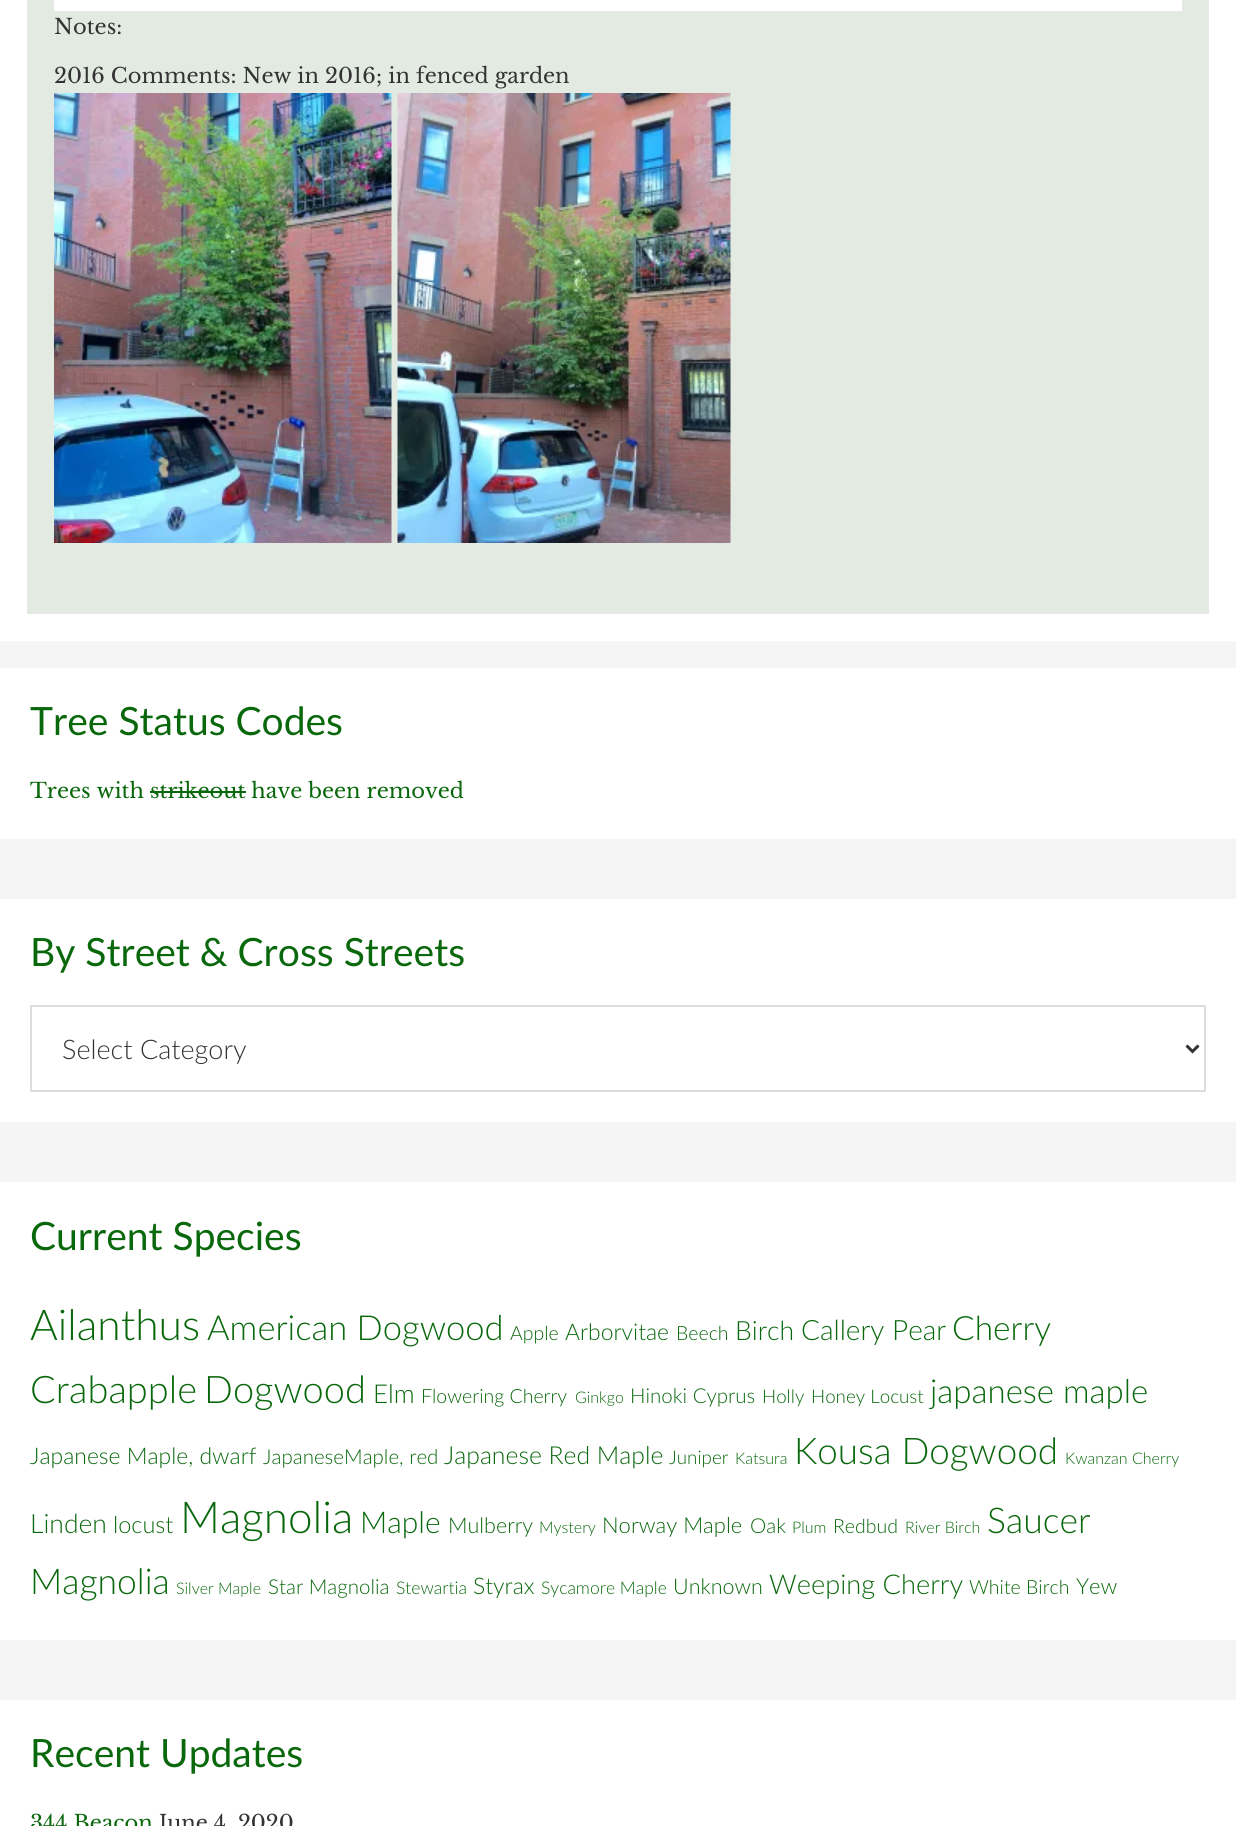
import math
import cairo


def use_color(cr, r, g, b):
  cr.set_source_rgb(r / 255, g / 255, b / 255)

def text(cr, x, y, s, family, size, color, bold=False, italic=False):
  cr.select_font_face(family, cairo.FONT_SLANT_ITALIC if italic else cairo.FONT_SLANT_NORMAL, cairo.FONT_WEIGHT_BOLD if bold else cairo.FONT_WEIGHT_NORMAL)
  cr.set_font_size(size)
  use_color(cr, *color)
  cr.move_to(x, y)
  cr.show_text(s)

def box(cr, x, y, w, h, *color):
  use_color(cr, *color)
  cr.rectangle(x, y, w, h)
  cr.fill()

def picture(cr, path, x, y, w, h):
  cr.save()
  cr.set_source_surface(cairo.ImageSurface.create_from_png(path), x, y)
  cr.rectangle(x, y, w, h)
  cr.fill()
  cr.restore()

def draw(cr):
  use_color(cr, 245, 245, 245)
  cr.paint()
  box(cr, 0, 0, 1236, 641, 255, 255, 255)
  box(cr, 27, 0, 1182, 614, 226, 234, 226)
  box(cr, 54, 0, 1128, 11, 255, 255, 255)
  picture(cr, "img_01.png", 54, 93, 338, 450)
  picture(cr, "img_02.png", 397, 93, 334, 450)
  box(cr, 0, 668, 1236, 171, 255, 255, 255)
  box(cr, 150, 791, 96, 2, 10, 104, 12)
  box(cr, 0, 899, 1236, 223, 255, 255, 255)
  cr.rectangle(31, 1006, 1174, 85)
  use_color(cr, 221, 221, 221)
  cr.stroke()
  cr.new_path()
  cr.move_to(1186.5, 1045.5)
  cr.line_to(1192.5, 1051.5)
  cr.line_to(1198.5, 1045.5)
  use_color(cr, 51, 51, 51)
  cr.set_line_width(3)
  cr.stroke()
  box(cr, 0, 1182, 1236, 458, 255, 255, 255)
  box(cr, 0, 1700, 1236, 126, 255, 255, 255)
  text(cr, 54, 34, "Notes:", "Libre Baskerville", 21, (51, 51, 51))
  text(cr, 54, 83, "2016 Comments: New in 2016; in fenced garden", "Libre Baskerville", 21, (51, 51, 51))
  text(cr, 30, 735, "Tree Status Codes", "Lato", 39, (10, 104, 12))
  text(cr, 30, 798, "Trees with strikeout have been removed", "Libre Baskerville", 21, (10, 104, 12))
  text(cr, 30, 966, "By Street & Cross Streets", "Lato", 39, (10, 104, 12))
  text(cr, 62, 1059, "Select Category", "Lato Light", 27, (51, 51, 51))
  text(cr, 30, 1250, "Current Species", "Lato", 39, (10, 104, 12))
  text(cr, 30, 1340, "Ailanthus", "Lato Light", 42.5, (10, 104, 12))
  text(cr, 207, 1340, "American Dogwood", "Lato Light", 34.5, (10, 104, 12))
  text(cr, 510, 1340, "Apple", "Lato Light", 19.5, (10, 104, 12))
  text(cr, 565, 1340, "Arborvitae", "Lato Light", 22.9, (10, 104, 12))
  text(cr, 676, 1340, "Beech", "Lato Light", 19.5, (10, 104, 12))
  text(cr, 735, 1340, "Birch", "Lato Light", 26.5, (10, 104, 12))
  text(cr, 801, 1340, "Callery Pear", "Lato Light", 28, (10, 104, 12))
  text(cr, 952, 1340, "Cherry", "Lato Light", 33.5, (10, 104, 12))
  text(cr, 30, 1403, "Crabapple", "Lato Light", 38, (10, 104, 12))
  text(cr, 204, 1403, "Dogwood", "Lato Light", 38, (10, 104, 12))
  text(cr, 373, 1403, "Elm", "Lato Light", 26, (10, 104, 12))
  text(cr, 421, 1403, "Flowering Cherry", "Lato Light", 19.5, (10, 104, 12))
  text(cr, 575, 1403, "Ginkgo", "Lato Light", 16, (10, 104, 12))
  text(cr, 630, 1403, "Hinoki Cyprus", "Lato Light", 20.5, (10, 104, 12))
  text(cr, 762, 1403, "Holly", "Lato Light", 18.75, (10, 104, 12))
  text(cr, 811, 1403, "Honey Locust", "Lato Light", 18.75, (10, 104, 12))
  text(cr, 930, 1403, "japanese maple", "Lato Light", 33, (10, 104, 12))
  text(cr, 30, 1464, "Japanese Maple, dwarf", "Lato Light", 22.9, (10, 104, 12))
  text(cr, 263, 1464, "JapaneseMaple, red", "Lato Light", 20.5, (10, 104, 12))
  text(cr, 444, 1464, "Japanese Red Maple", "Lato Light", 24.75, (10, 104, 12))
  text(cr, 669, 1464, "Juniper", "Lato Light", 18.75, (10, 104, 12))
  text(cr, 735, 1464, "Katsura", "Lato Light", 16, (10, 104, 12))
  text(cr, 794, 1464, "Kousa Dogwood", "Lato Light", 36.75, (10, 104, 12))
  text(cr, 1065, 1464, "Kwanzan Cherry", "Lato Light", 16, (10, 104, 12))
  text(cr, 30, 1533, "Linden", "Lato Light", 26.5, (10, 104, 12))
  text(cr, 113, 1533, "locust", "Lato Light", 23.5, (10, 104, 12))
  text(cr, 180, 1533, "Magnolia", "Lato Light", 44, (10, 104, 12))
  text(cr, 360, 1533, "Maple", "Lato Light", 30, (10, 104, 12))
  text(cr, 448, 1533, "Mulberry", "Lato Light", 21.5, (10, 104, 12))
  text(cr, 539, 1533, "Mystery", "Lato Light", 16, (10, 104, 12))
  text(cr, 602, 1533, "Norway Maple", "Lato Light", 22, (10, 104, 12))
  text(cr, 750, 1533, "Oak", "Lato Light", 20.5, (10, 104, 12))
  text(cr, 792, 1533, "Plum", "Lato Light", 16, (10, 104, 12))
  text(cr, 833, 1533, "Redbud", "Lato Light", 19.5, (10, 104, 12))
  text(cr, 905, 1533, "River Birch", "Lato Light", 16, (10, 104, 12))
  text(cr, 987, 1533, "Saucer", "Lato Light", 35.5, (10, 104, 12))
  text(cr, 30, 1594, "Magnolia", "Lato Light", 35.5, (10, 104, 12))
  text(cr, 176, 1594, "Silver Maple", "Lato Light", 16, (10, 104, 12))
  text(cr, 268, 1594, "Star Magnolia", "Lato Light", 20.5, (10, 104, 12))
  text(cr, 396, 1594, "Stewartia", "Lato Light", 17.5, (10, 104, 12))
  text(cr, 473, 1594, "Styrax", "Lato Light", 22.9, (10, 104, 12))
  text(cr, 541, 1594, "Sycamore Maple", "Lato Light", 17.5, (10, 104, 12))
  text(cr, 673, 1594, "Unknown", "Lato Light", 21.5, (10, 104, 12))
  text(cr, 769, 1594, "Weeping Cherry", "Lato Light", 27.25, (10, 104, 12))
  text(cr, 969, 1594, "White Birch", "Lato Light", 19.5, (10, 104, 12))
  text(cr, 1076, 1594, "Yew", "Lato Light", 22, (10, 104, 12))
  text(cr, 30, 1767, "Recent Updates", "Lato", 39, (10, 104, 12))
  text(cr, 30, 1830, "344 Beacon", "Libre Baskerville", 21, (10, 104, 12))
  text(cr, 159, 1830, "June 4, 2020", "Libre Baskerville", 21, (51, 51, 51))


surface = cairo.ImageSurface(cairo.FORMAT_RGB24, 1236, 1826)
cr = cairo.Context(surface)
options = cairo.FontOptions()
options.set_hint_metrics(cairo.HINT_METRICS_OFF)
options.set_hint_style(cairo.HINT_STYLE_NONE)
cr.set_font_options(options)
cr.set_miter_limit(4)
draw(cr)
surface.write_to_png("out.png")
